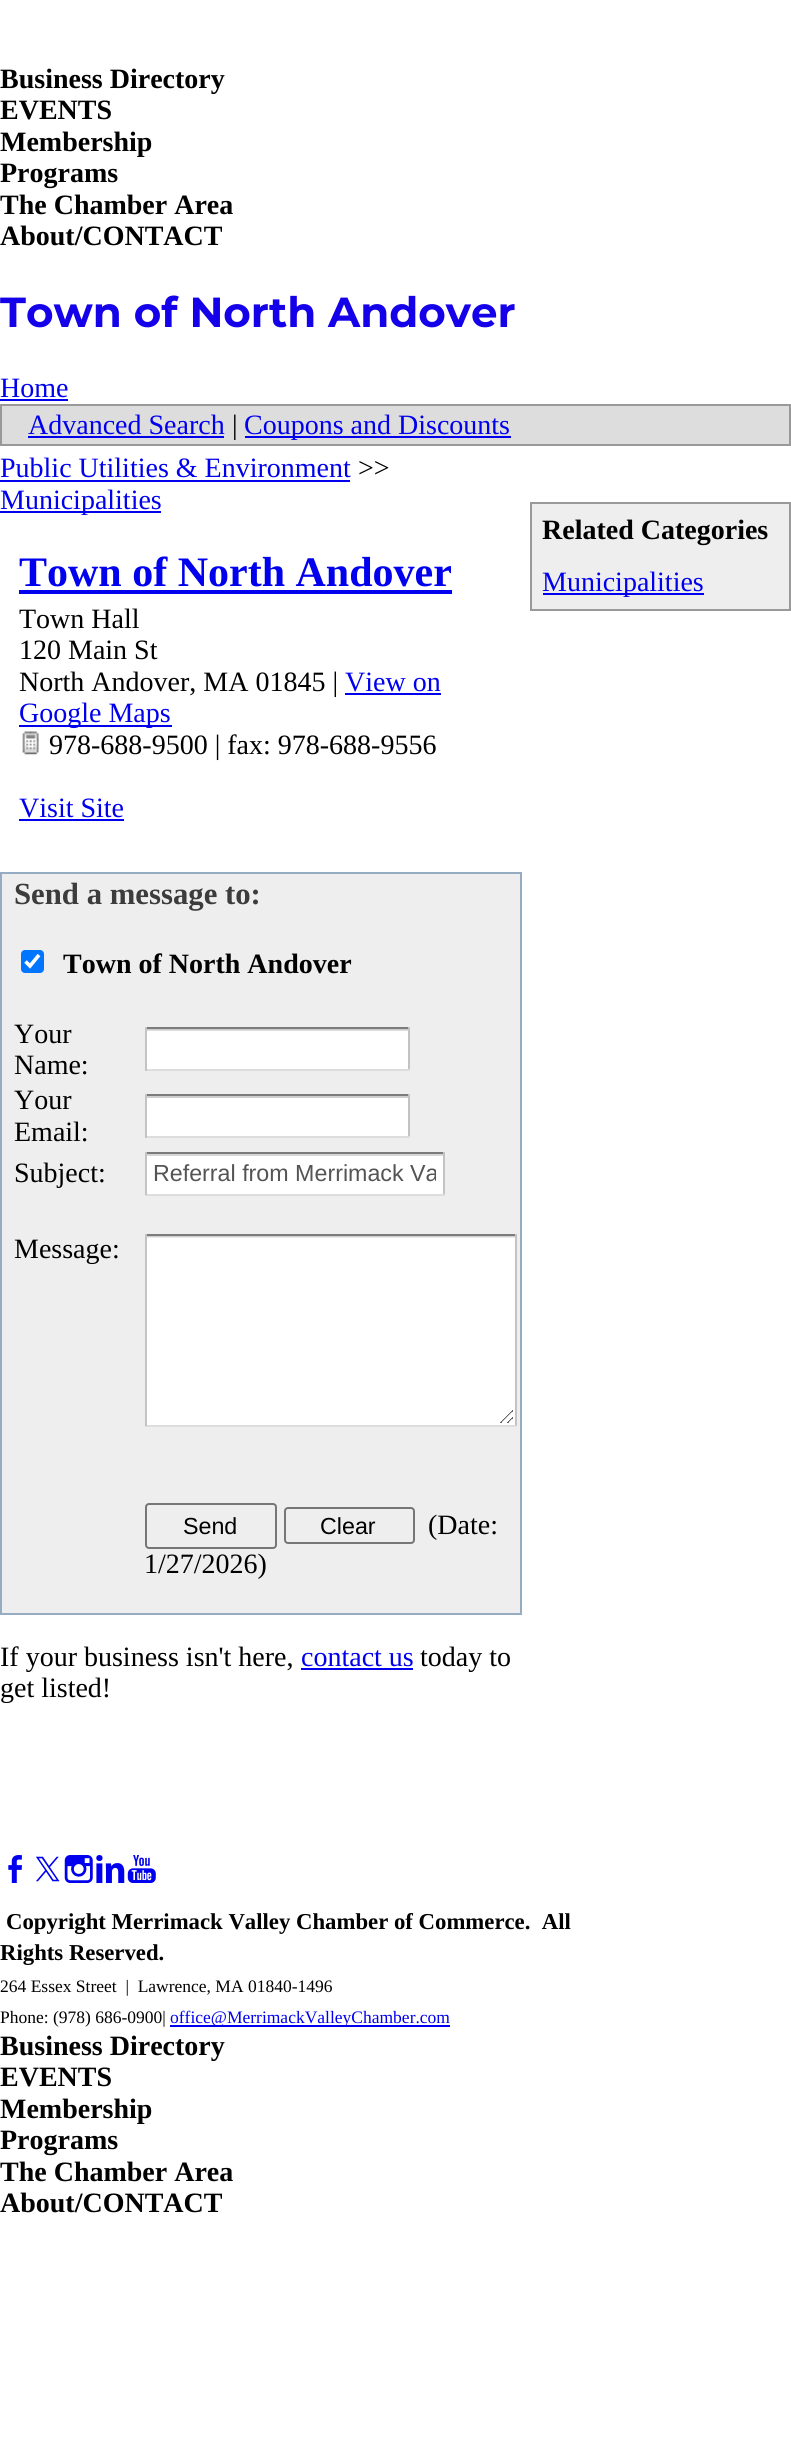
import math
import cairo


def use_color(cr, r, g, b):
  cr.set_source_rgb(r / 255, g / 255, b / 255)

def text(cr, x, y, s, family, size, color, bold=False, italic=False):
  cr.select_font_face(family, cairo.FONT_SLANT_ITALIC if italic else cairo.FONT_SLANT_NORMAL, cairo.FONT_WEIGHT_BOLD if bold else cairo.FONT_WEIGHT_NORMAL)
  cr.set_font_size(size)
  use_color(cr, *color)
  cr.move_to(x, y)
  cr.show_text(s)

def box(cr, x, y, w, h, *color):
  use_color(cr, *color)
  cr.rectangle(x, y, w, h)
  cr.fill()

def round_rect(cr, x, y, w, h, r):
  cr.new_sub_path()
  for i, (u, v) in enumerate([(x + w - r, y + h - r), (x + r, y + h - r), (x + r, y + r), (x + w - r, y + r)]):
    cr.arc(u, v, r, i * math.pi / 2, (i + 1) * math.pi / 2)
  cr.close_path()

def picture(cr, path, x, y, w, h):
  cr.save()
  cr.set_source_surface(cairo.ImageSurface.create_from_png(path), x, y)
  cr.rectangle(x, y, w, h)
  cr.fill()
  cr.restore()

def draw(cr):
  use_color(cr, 255, 255, 255)
  cr.paint()
  box(cr, 0, 399, 68, 2, 0, 0, 238)
  use_color(cr, 221, 221, 221)
  cr.rectangle(1, 405, 789, 40)
  cr.fill_preserve()
  use_color(cr, 153, 153, 153)
  cr.stroke()
  box(cr, 28, 436, 196, 2, 0, 0, 238)
  box(cr, 245, 436, 266, 2, 0, 0, 238)
  box(cr, 0, 480, 350, 2, 0, 0, 238)
  box(cr, 0, 511, 161, 2, 0, 0, 238)
  box(cr, 19, 590, 433, 4, 0, 0, 238)
  box(cr, 345, 693, 96, 2, 0, 0, 238)
  box(cr, 19, 725, 153, 2, 0, 0, 238)
  picture(cr, "img_01.png", 22, 731, 17, 24)
  box(cr, 19, 819, 105, 2, 0, 0, 238)
  use_color(cr, 238, 238, 238)
  cr.rectangle(1, 873, 520, 741)
  cr.fill_preserve()
  use_color(cr, 150, 172, 195)
  cr.stroke()
  use_color(cr, 0, 117, 255)
  round_rect(cr, 21, 950, 23, 23, 4)
  cr.fill()
  cr.new_path()
  cr.move_to(25.5, 961.5)
  cr.line_to(30, 966)
  cr.line_to(39, 955)
  use_color(cr, 255, 255, 255)
  cr.set_line_width(3.6)
  cr.stroke()
  box(cr, 147, 1030, 261, 39, 255, 255, 255)
  picture(cr, "img_02.png", 147, 1029, 261, 2)
  box(cr, 145, 1027, 265, 2, 124, 124, 124)
  box(cr, 408, 1027, 2, 44, 195, 195, 195)
  box(cr, 145, 1069, 265, 2, 221, 221, 221)
  box(cr, 145, 1027, 2, 44, 195, 195, 195)
  box(cr, 147, 1098, 261, 38, 255, 255, 255)
  box(cr, 145, 1096, 265, 2, 207, 207, 207)
  box(cr, 145, 1094, 265, 2, 124, 124, 124)
  box(cr, 408, 1094, 2, 44, 195, 195, 195)
  box(cr, 145, 1136, 265, 2, 221, 221, 221)
  box(cr, 145, 1094, 2, 44, 195, 195, 195)
  box(cr, 147, 1156, 296, 38, 255, 255, 255)
  box(cr, 145, 1154, 300, 2, 215, 215, 215)
  box(cr, 145, 1152, 300, 2, 124, 124, 124)
  box(cr, 443, 1152, 2, 43, 195, 195, 195)
  box(cr, 145, 1194, 300, 2, 221, 221, 221)
  box(cr, 145, 1152, 2, 43, 195, 195, 195)
  box(cr, 147, 1236, 368, 189, 255, 255, 255)
  picture(cr, "img_03.png", 147, 1236, 368, 187)
  box(cr, 145, 1234, 371, 2, 124, 124, 124)
  box(cr, 515, 1234, 2, 192, 195, 195, 195)
  box(cr, 145, 1425, 371, 2, 221, 221, 221)
  box(cr, 145, 1234, 2, 192, 195, 195, 195)
  round_rect(cr, 146, 1504, 130, 44, 3)
  use_color(cr, 118, 118, 118)
  cr.set_line_width(2)
  cr.stroke()
  round_rect(cr, 285, 1508, 129, 35, 3)
  cr.stroke()
  box(cr, 301, 1668, 112, 2, 0, 0, 238)
  use_color(cr, 238, 238, 238)
  cr.rectangle(531, 503, 259, 107)
  cr.fill_preserve()
  use_color(cr, 153, 153, 153)
  cr.stroke()
  box(cr, 543, 593, 161, 2, 0, 0, 238)
  picture(cr, "img_04.png", 8, 1855, 14, 28)
  picture(cr, "img_05.png", 36, 1856, 24, 26)
  picture(cr, "img_06.png", 64, 1855, 29, 28)
  picture(cr, "img_07.png", 96, 1855, 29, 28)
  picture(cr, "img_08.png", 127, 1855, 29, 28)
  box(cr, 170, 2025, 280, 2, 0, 0, 238)
  text(cr, 0, 88, "Business Directory", "Liberation Serif", 28, (0, 0, 0), bold=True)
  text(cr, 0, 119, "EVENTS", "Liberation Serif", 28, (0, 0, 0), bold=True)
  text(cr, 0, 151, "Membership", "Liberation Serif", 28, (0, 0, 0), bold=True)
  text(cr, 0, 182, "Programs", "Liberation Serif", 28, (0, 0, 0), bold=True)
  text(cr, 0, 214, "The Chamber Area", "Liberation Serif", 28, (0, 0, 0), bold=True)
  text(cr, 0, 245, "About/CONTACT", "Liberation Serif", 28, (0, 0, 0), bold=True)
  text(cr, 0, 327, "Town of North Andover", "Montserrat Thin", 42, (20, 0, 233))
  text(cr, 0, 397, "Home", "Liberation Serif", 28, (0, 0, 238))
  text(cr, 28, 434, "Advanced Search", "Liberation Serif", 28, (0, 0, 238))
  text(cr, 232, 434, "|", "Liberation Serif", 28, (0, 0, 0))
  text(cr, 244, 434, "Coupons and Discounts", "Liberation Serif", 28, (0, 0, 238))
  text(cr, 0, 477, "Public Utilities & Environment", "Liberation Serif", 28, (0, 0, 238))
  text(cr, 358, 477, ">>", "Liberation Serif", 28, (0, 0, 0))
  text(cr, 0, 509, "Municipalities", "Liberation Serif", 28, (0, 0, 238))
  text(cr, 19, 586, "Town of North Andover", "Liberation Serif", 42, (0, 0, 238), bold=True)
  text(cr, 19, 628, "Town Hall", "Liberation Serif", 28, (0, 0, 0))
  text(cr, 19, 659, "120 Main St", "Liberation Serif", 28, (0, 0, 0))
  text(cr, 19, 691, "North Andover, MA 01845 |", "Liberation Serif", 28, (0, 0, 0))
  text(cr, 345, 691, "View on", "Liberation Serif", 28, (0, 0, 238))
  text(cr, 19, 722, "Google Maps", "Liberation Serif", 28, (0, 0, 238))
  text(cr, 49, 754, "978-688-9500 | fax: 978-688-9556", "Liberation Serif", 28, (0, 0, 0))
  text(cr, 19, 817, "Visit Site", "Liberation Serif", 28, (0, 0, 238))
  text(cr, 14, 904, "Send a message to:", "Liberation Serif", 30.75, (60, 60, 60), bold=True)
  text(cr, 63, 973, "Town of North Andover", "Liberation Serif", 28, (0, 0, 0), bold=True)
  text(cr, 14, 1043, "Your", "Liberation Serif", 28, (0, 0, 0))
  text(cr, 14, 1074, "Name:", "Liberation Serif", 28, (0, 0, 0))
  text(cr, 14, 1109, "Your", "Liberation Serif", 28, (0, 0, 0))
  text(cr, 14, 1141, "Email:", "Liberation Serif", 28, (0, 0, 0))
  text(cr, 14, 1182, "Subject:", "Liberation Serif", 28, (0, 0, 0))
  cr.save()
  cr.rectangle(154, 1160, 282, 27)
  cr.clip()
  text(cr, 153, 1181, "Referral from Merrimack Va", "Liberation Sans", 23.25, (84, 84, 84))
  cr.restore()
  text(cr, 14, 1258, "Message:", "Liberation Serif", 28, (0, 0, 0))
  text(cr, 183, 1534, "Send", "Liberation Sans", 23.25, (0, 0, 0))
  text(cr, 320, 1534, "Clear", "Liberation Sans", 23.25, (0, 0, 0))
  text(cr, 428, 1534, "(Date:", "Liberation Serif", 28, (0, 0, 0))
  text(cr, 144, 1573, "1/27/2026)", "Liberation Serif", 28, (0, 0, 0))
  text(cr, 0, 1666, "If your business isn't here,", "Liberation Serif", 28, (0, 0, 0))
  text(cr, 301, 1666, "contact us", "Liberation Serif", 28, (0, 0, 238))
  text(cr, 420, 1666, "today to", "Liberation Serif", 28, (0, 0, 0))
  text(cr, 0, 1697, "get listed!", "Liberation Serif", 28, (0, 0, 0))
  text(cr, 542, 539, "Related Categories", "Liberation Serif", 28, (0, 0, 0), bold=True)
  text(cr, 542, 591, "Municipalities", "Liberation Serif", 28, (0, 0, 238))
  text(cr, 6, 1929, "Copyright Merrimack Valley Chamber of Commerce.  All", "Liberation Serif", 22.75, (0, 0, 0), bold=True)
  text(cr, 0, 1960, "Rights Reserved.", "Liberation Serif", 22.75, (0, 0, 0), bold=True)
  text(cr, 0, 1992, "264 Essex Street  |  Lawrence, MA 01840-1496", "Liberation Serif", 17.5, (0, 0, 0))
  text(cr, 0, 2023, "Phone: (978) 686-0900|", "Liberation Serif", 17.5, (0, 0, 0))
  text(cr, 170, 2023, "office@MerrimackValleyChamber.com", "Liberation Serif", 17.5, (0, 0, 238))
  text(cr, 0, 2055, "Business Directory", "Liberation Serif", 28, (0, 0, 0), bold=True)
  text(cr, 0, 2086, "EVENTS", "Liberation Serif", 28, (0, 0, 0), bold=True)
  text(cr, 0, 2118, "Membership", "Liberation Serif", 28, (0, 0, 0), bold=True)
  text(cr, 0, 2149, "Programs", "Liberation Serif", 28, (0, 0, 0), bold=True)
  text(cr, 0, 2181, "The Chamber Area", "Liberation Serif", 28, (0, 0, 0), bold=True)
  text(cr, 0, 2212, "About/CONTACT", "Liberation Serif", 28, (0, 0, 0), bold=True)


surface = cairo.ImageSurface(cairo.FORMAT_RGB24, 791, 2452)
cr = cairo.Context(surface)
options = cairo.FontOptions()
options.set_hint_metrics(cairo.HINT_METRICS_OFF)
options.set_hint_style(cairo.HINT_STYLE_NONE)
cr.set_font_options(options)
cr.set_miter_limit(4)
draw(cr)
surface.write_to_png("out.png")
